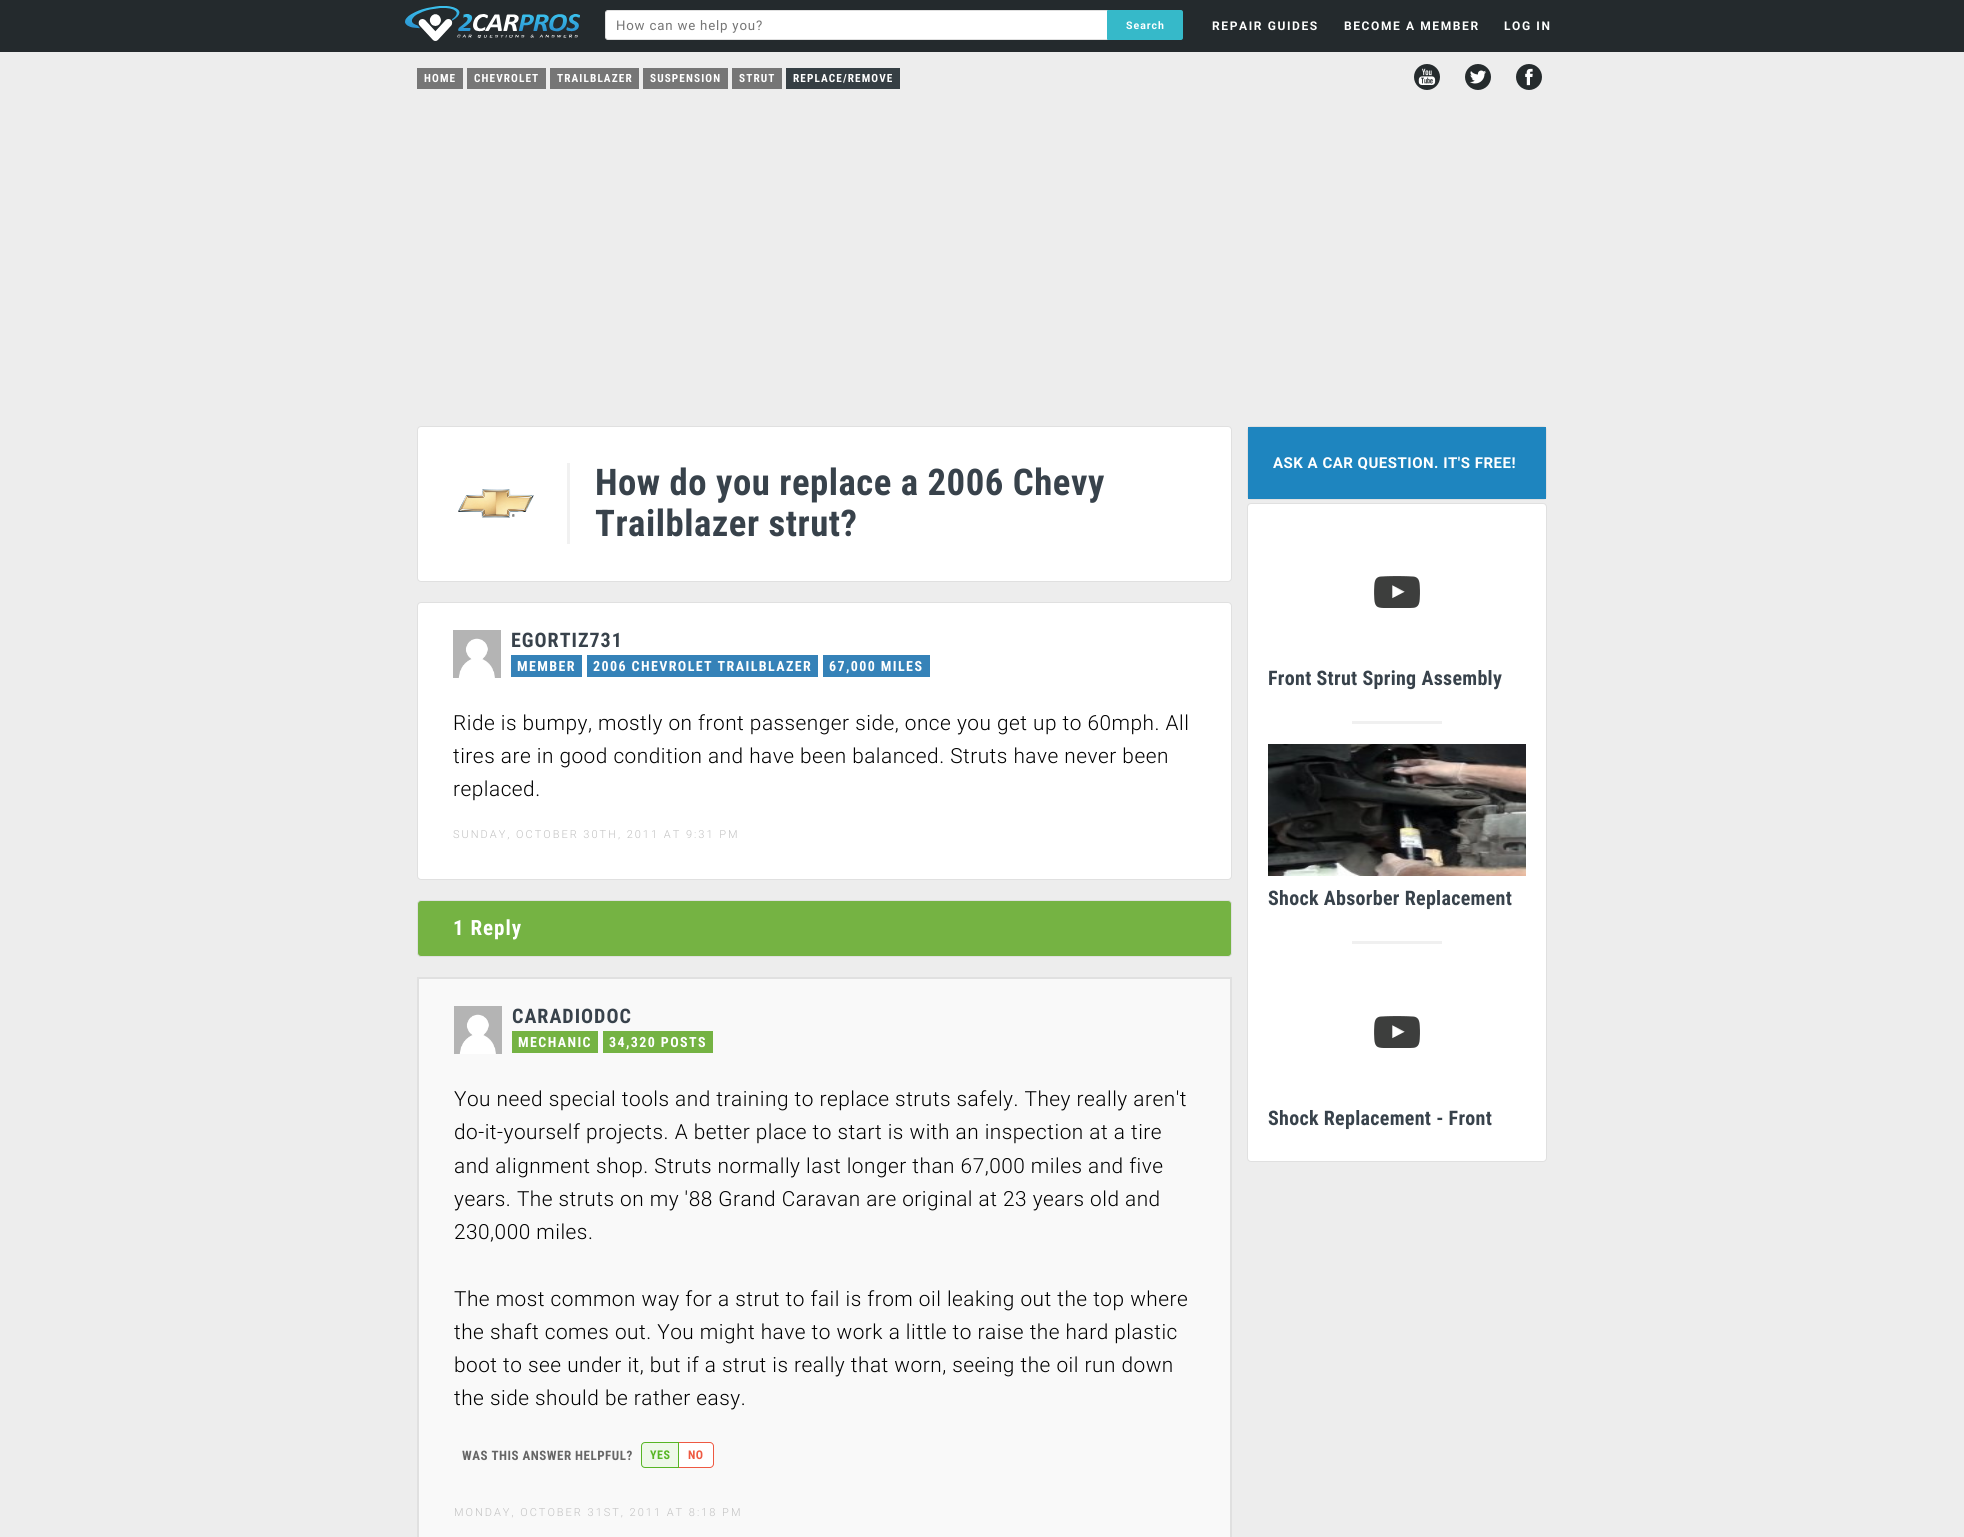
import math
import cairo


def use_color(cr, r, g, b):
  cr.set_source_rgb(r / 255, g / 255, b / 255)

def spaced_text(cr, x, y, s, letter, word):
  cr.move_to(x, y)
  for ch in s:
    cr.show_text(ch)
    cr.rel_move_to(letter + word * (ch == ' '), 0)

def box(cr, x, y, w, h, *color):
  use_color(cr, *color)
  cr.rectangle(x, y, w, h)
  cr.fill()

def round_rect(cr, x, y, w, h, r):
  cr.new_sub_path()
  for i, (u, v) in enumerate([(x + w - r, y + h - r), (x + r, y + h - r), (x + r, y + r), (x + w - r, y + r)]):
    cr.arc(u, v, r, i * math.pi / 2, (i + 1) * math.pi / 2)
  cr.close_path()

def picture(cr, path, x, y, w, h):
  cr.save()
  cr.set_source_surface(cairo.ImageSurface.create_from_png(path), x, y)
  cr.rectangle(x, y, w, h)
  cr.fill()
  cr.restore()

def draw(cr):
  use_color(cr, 237, 237, 237)
  cr.paint()
  box(cr, 0, 0, 1964, 52, 36, 42, 45)
  use_color(cr, 255, 255, 255)
  round_rect(cr, 605.5, 10.5, 576, 29, 2.5)
  cr.fill_preserve()
  use_color(cr, 224, 224, 224)
  cr.set_line_width(1)
  cr.stroke()
  use_color(cr, 54, 185, 201)
  cr.new_path()
  cr.move_to(1108, 10)
  cr.line_to(1181, 10)
  cr.curve_to(1182, 10, 1183, 11, 1183, 12)
  cr.line_to(1183, 38)
  cr.curve_to(1183, 39, 1182, 40, 1181, 40)
  cr.line_to(1108, 40)
  cr.curve_to(1107.5, 40, 1107, 39.5, 1107, 39)
  cr.line_to(1107, 11)
  cr.curve_to(1107, 10.5, 1107.5, 10, 1108, 10)
  cr.close_path()
  cr.fill()
  picture(cr, "img_01.png", 405, 6, 175, 35)
  box(cr, 417, 68, 46, 21, 118, 118, 118)
  box(cr, 467, 68, 79, 21, 118, 118, 118)
  box(cr, 550, 68, 89, 21, 118, 118, 118)
  box(cr, 643, 68, 85, 21, 118, 118, 118)
  box(cr, 732, 68, 50, 21, 118, 118, 118)
  box(cr, 786, 68, 114, 21, 54, 63, 68)
  picture(cr, "img_02.png", 1414, 64, 26, 26)
  picture(cr, "img_03.png", 1465, 64, 26, 26)
  picture(cr, "img_04.png", 1516, 64, 26, 26)
  use_color(cr, 255, 255, 255)
  round_rect(cr, 417.5, 426.5, 814, 155, 3.5)
  cr.fill_preserve()
  use_color(cr, 224, 224, 224)
  cr.stroke()
  picture(cr, "img_05.png", 458, 489, 76, 29)
  box(cr, 567, 463, 3, 81, 241, 241, 241)
  use_color(cr, 255, 255, 255)
  round_rect(cr, 417.5, 602.5, 814, 277, 3.5)
  cr.fill_preserve()
  use_color(cr, 224, 224, 224)
  cr.stroke()
  picture(cr, "img_06.png", 453, 630, 48, 48)
  box(cr, 511, 655, 71, 22, 53, 130, 184)
  box(cr, 587, 655, 231, 22, 53, 130, 184)
  box(cr, 823, 655, 107, 22, 53, 130, 184)
  use_color(cr, 117, 179, 67)
  round_rect(cr, 417.5, 900.5, 814, 56, 3.5)
  cr.fill_preserve()
  use_color(cr, 224, 224, 224)
  cr.stroke()
  use_color(cr, 249, 249, 249)
  cr.rectangle(418, 978, 813, 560)
  cr.fill_preserve()
  use_color(cr, 224, 224, 224)
  cr.set_line_width(2)
  cr.stroke()
  picture(cr, "img_07.png", 454, 1006, 48, 48)
  box(cr, 512, 1031, 86, 22, 117, 179, 67)
  box(cr, 603, 1031, 110, 22, 117, 179, 67)
  use_color(cr, 238, 248, 233)
  cr.new_path()
  cr.move_to(645, 1442.5)
  cr.line_to(678.5, 1442.5)
  cr.line_to(678.5, 1467.5)
  cr.line_to(645, 1467.5)
  cr.curve_to(643, 1467.5, 641.5, 1466, 641.5, 1464)
  cr.line_to(641.5, 1446)
  cr.curve_to(641.5, 1444, 643, 1442.5, 645, 1442.5)
  cr.close_path()
  cr.fill_preserve()
  use_color(cr, 87, 181, 36)
  cr.set_line_width(1)
  cr.stroke()
  use_color(cr, 255, 255, 255)
  cr.new_path()
  cr.move_to(679, 1442)
  cr.line_to(710, 1442)
  cr.curve_to(712, 1442, 714, 1444, 714, 1446)
  cr.line_to(714, 1464)
  cr.curve_to(714, 1466, 712, 1468, 710, 1468)
  cr.line_to(679, 1468)
  cr.close_path()
  cr.fill()
  use_color(cr, 238, 89, 66)
  cr.set_fill_rule(cairo.FILL_RULE_EVEN_ODD)
  cr.new_path()
  cr.move_to(679, 1442)
  cr.line_to(710, 1442)
  cr.curve_to(712, 1442, 714, 1444, 714, 1446)
  cr.line_to(714, 1464)
  cr.curve_to(714, 1466, 712, 1468, 710, 1468)
  cr.line_to(679, 1468)
  cr.close_path()
  cr.move_to(679, 1443)
  cr.line_to(710, 1443)
  cr.curve_to(711.5, 1443, 713, 1444.5, 713, 1446)
  cr.line_to(713, 1464)
  cr.curve_to(713, 1465.5, 711.5, 1467, 710, 1467)
  cr.line_to(679, 1467)
  cr.close_path()
  cr.fill()
  round_rect(cr, 1247.5, 426.5, 299, 73, 3.5)
  use_color(cr, 224, 224, 224)
  cr.stroke()
  box(cr, 1248, 427, 298, 72, 30, 133, 191)
  use_color(cr, 255, 255, 255)
  round_rect(cr, 1247.5, 503.5, 299, 658, 3.5)
  cr.fill_preserve()
  use_color(cr, 224, 224, 224)
  cr.stroke()
  picture(cr, "img_08.png", 1374, 576, 46, 32)
  box(cr, 1352, 721, 90, 3, 240, 240, 240)
  picture(cr, "img_09.png", 1268, 744, 258, 132)
  box(cr, 1352, 941, 90, 3, 240, 240, 240)
  picture(cr, "img_08.png", 1374, 1016, 46, 32)
  cr.select_font_face("Roboto")
  cr.set_font_size(13.25)
  use_color(cr, 117, 117, 117)
  spaced_text(cr, 616, 30, "How can we help you?", 0.8, 0)
  cr.select_font_face("Roboto", cairo.FONT_SLANT_NORMAL, cairo.FONT_WEIGHT_BOLD)
  cr.set_font_size(10.5)
  use_color(cr, 255, 255, 255)
  spaced_text(cr, 1126, 29, "Search", 1, 0)
  cr.set_font_size(12)
  spaced_text(cr, 1212, 30, "REPAIR GUIDES", 1.6, 0)
  spaced_text(cr, 1344, 30, "BECOME A MEMBER", 1.6, 0)
  spaced_text(cr, 1504, 30, "LOG IN", 1.6, 0)
  cr.select_font_face("Roboto Condensed", cairo.FONT_SLANT_NORMAL, cairo.FONT_WEIGHT_BOLD)
  cr.set_font_size(11.25)
  spaced_text(cr, 424, 82, "HOME", 1.1, 0)
  spaced_text(cr, 474, 82, "CHEVROLET", 1.1, 0)
  spaced_text(cr, 557, 82, "TRAILBLAZER", 1.1, 0)
  spaced_text(cr, 650, 82, "SUSPENSION", 1.1, 0)
  spaced_text(cr, 739, 82, "STRUT", 1.1, 0)
  spaced_text(cr, 793, 82, "REPLACE/REMOVE", 1.1, 0)
  cr.set_font_size(36.75)
  use_color(cr, 56, 66, 75)
  spaced_text(cr, 595, 495, "How do you replace a 2006 Chevy", 0.5, 0)
  spaced_text(cr, 595, 536, "Trailblazer strut?", 0.5, 0)
  cr.set_font_size(20)
  spaced_text(cr, 511, 647, "EGORTIZ731", 1, 0)
  cr.set_font_size(14)
  use_color(cr, 255, 255, 255)
  spaced_text(cr, 517, 671, "MEMBER", 1.4, 0)
  spaced_text(cr, 593, 671, "2006 CHEVROLET TRAILBLAZER", 1.4, 0)
  spaced_text(cr, 829, 671, "67,000 MILES", 1.4, 0)
  cr.select_font_face("Roboto Light")
  cr.set_font_size(20.8)
  use_color(cr, 0, 0, 0)
  spaced_text(cr, 453, 730, "Ride is bumpy, mostly on front passenger side, once you get up to 60mph. All", 0.5, 0)
  spaced_text(cr, 453, 763, "tires are in good condition and have been balanced. Struts have never been", 0.5, 0)
  spaced_text(cr, 453, 796, "replaced.", 0.5, 0)
  cr.set_font_size(11)
  use_color(cr, 193, 193, 193)
  spaced_text(cr, 453, 838, "SUNDAY, OCTOBER 30TH, 2011 AT 9:31 PM", 2, 0)
  cr.select_font_face("Roboto Condensed", cairo.FONT_SLANT_NORMAL, cairo.FONT_WEIGHT_BOLD)
  cr.set_font_size(21)
  use_color(cr, 255, 255, 255)
  spaced_text(cr, 453, 935, "1 Reply", 1, 0)
  cr.set_font_size(20)
  use_color(cr, 56, 66, 75)
  spaced_text(cr, 512, 1023, "CARADIODOC", 1, 0)
  cr.set_font_size(14)
  use_color(cr, 255, 255, 255)
  spaced_text(cr, 518, 1047, "MECHANIC", 1.4, 0)
  spaced_text(cr, 609, 1047, "34,320 POSTS", 1.4, 0)
  cr.select_font_face("Roboto Light")
  cr.set_font_size(20.8)
  use_color(cr, 0, 0, 0)
  spaced_text(cr, 454, 1106, "You need special tools and training to replace struts safely. They really aren't", 0.5, 0)
  spaced_text(cr, 454, 1139, "do-it-yourself projects. A better place to start is with an inspection at a tire", 0.5, 0)
  spaced_text(cr, 454, 1173, "and alignment shop. Struts normally last longer than 67,000 miles and five", 0.5, 0)
  spaced_text(cr, 454, 1206, "years. The struts on my '88 Grand Caravan are original at 23 years old and", 0.5, 0)
  spaced_text(cr, 454, 1239, "230,000 miles.", 0.5, 0)
  spaced_text(cr, 454, 1306, "The most common way for a strut to fail is from oil leaking out the top where", 0.5, 0)
  spaced_text(cr, 454, 1339, "the shaft comes out. You might have to work a little to raise the hard plastic", 0.5, 0)
  spaced_text(cr, 454, 1372, "boot to see under it, but if a strut is really that worn, seeing the oil run down", 0.5, 0)
  spaced_text(cr, 454, 1405, "the side should be rather easy.", 0.5, 0)
  cr.select_font_face("Roboto Condensed", cairo.FONT_SLANT_NORMAL, cairo.FONT_WEIGHT_BOLD)
  cr.set_font_size(13)
  use_color(cr, 102, 102, 102)
  spaced_text(cr, 462, 1460, "WAS THIS ANSWER HELPFUL?", 0.5, 0)
  cr.set_font_size(12)
  use_color(cr, 87, 181, 36)
  spaced_text(cr, 650, 1459, "YES", 0.5, 0)
  use_color(cr, 238, 89, 66)
  spaced_text(cr, 688, 1459, "NO", 0.5, 0)
  cr.select_font_face("Roboto Light")
  cr.set_font_size(11)
  use_color(cr, 193, 193, 193)
  spaced_text(cr, 454, 1516, "MONDAY, OCTOBER 31ST, 2011 AT 8:18 PM", 2, 0)
  cr.select_font_face("Roboto", cairo.FONT_SLANT_NORMAL, cairo.FONT_WEIGHT_BOLD)
  cr.set_font_size(15)
  use_color(cr, 255, 255, 255)
  spaced_text(cr, 1273, 468, "ASK A CAR QUESTION. IT'S FREE!", 0.5, 0)
  cr.select_font_face("Roboto Condensed", cairo.FONT_SLANT_NORMAL, cairo.FONT_WEIGHT_BOLD)
  cr.set_font_size(20)
  use_color(cr, 56, 66, 75)
  spaced_text(cr, 1268, 685, "Front Strut Spring Assembly", 0.3, 0)
  spaced_text(cr, 1268, 905, "Shock Absorber Replacement", 0.3, 0)
  spaced_text(cr, 1268, 1125, "Shock Replacement - Front", 0.3, 0)


surface = cairo.ImageSurface(cairo.FORMAT_RGB24, 1964, 1537)
cr = cairo.Context(surface)
options = cairo.FontOptions()
options.set_hint_metrics(cairo.HINT_METRICS_OFF)
options.set_hint_style(cairo.HINT_STYLE_NONE)
cr.set_font_options(options)
cr.set_miter_limit(4)
draw(cr)
surface.write_to_png("out.png")
